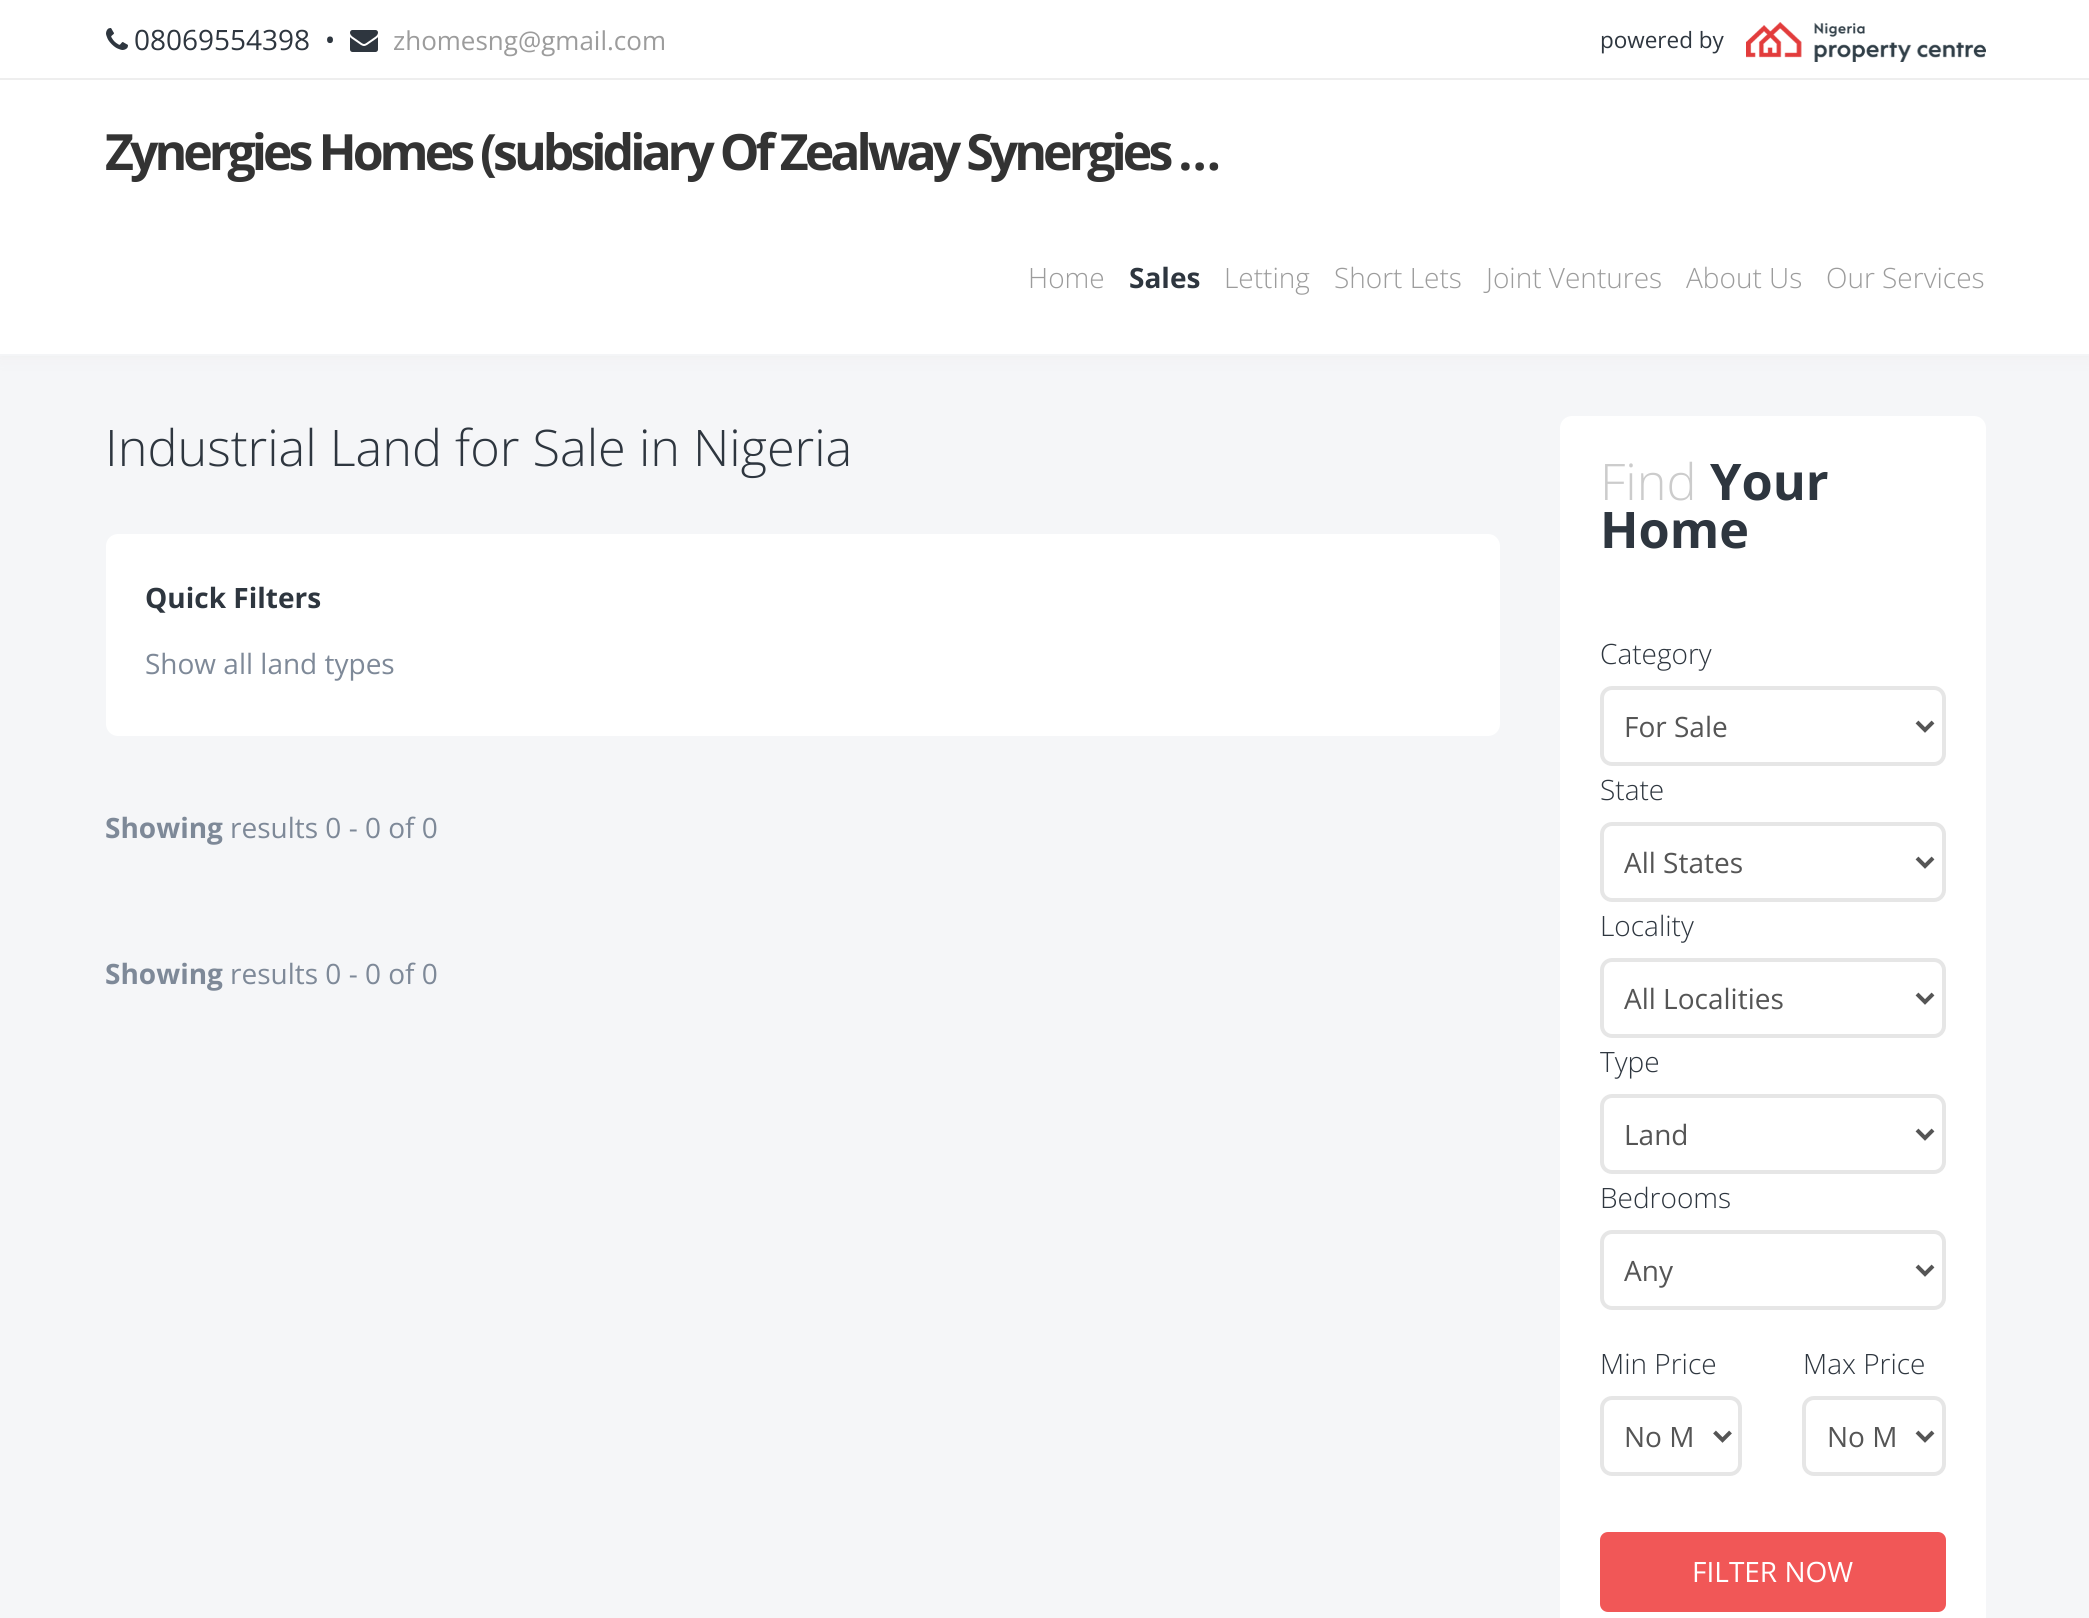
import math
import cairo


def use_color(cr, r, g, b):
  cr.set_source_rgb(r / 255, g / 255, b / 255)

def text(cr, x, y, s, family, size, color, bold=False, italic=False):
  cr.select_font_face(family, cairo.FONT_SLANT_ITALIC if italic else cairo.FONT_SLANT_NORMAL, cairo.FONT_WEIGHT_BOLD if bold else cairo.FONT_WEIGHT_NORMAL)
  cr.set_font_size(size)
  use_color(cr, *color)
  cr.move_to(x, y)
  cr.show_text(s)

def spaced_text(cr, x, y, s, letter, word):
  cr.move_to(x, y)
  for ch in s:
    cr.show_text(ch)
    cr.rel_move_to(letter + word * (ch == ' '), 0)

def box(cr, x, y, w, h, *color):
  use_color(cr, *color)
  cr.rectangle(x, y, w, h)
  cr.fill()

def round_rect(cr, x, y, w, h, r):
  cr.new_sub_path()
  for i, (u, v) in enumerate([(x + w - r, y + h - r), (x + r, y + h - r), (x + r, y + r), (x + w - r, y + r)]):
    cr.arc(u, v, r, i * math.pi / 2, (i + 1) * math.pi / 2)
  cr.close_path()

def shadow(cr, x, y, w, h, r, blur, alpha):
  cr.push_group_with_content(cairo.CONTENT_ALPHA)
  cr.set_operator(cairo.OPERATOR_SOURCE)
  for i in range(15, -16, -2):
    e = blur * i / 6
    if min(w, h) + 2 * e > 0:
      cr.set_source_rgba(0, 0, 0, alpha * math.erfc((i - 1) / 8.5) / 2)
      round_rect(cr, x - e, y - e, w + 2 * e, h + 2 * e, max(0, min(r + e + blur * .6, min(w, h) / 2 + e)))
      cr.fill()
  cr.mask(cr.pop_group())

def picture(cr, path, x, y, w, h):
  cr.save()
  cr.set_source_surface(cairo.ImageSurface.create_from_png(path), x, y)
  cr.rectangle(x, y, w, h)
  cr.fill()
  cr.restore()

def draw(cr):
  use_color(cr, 245, 246, 248)
  cr.paint()
  use_color(cr, 238, 238, 238)
  shadow(cr, 0, 80, 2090, 276, 0, 8, 1)
  box(cr, 0, 0, 2089, 78, 255, 255, 255)
  box(cr, 0, 78, 2089, 2, 238, 238, 238)
  picture(cr, "img_01.png", 106, 28, 22, 22)
  picture(cr, "img_02.png", 350, 30, 28, 22)
  picture(cr, "img_03.png", 1746, 22, 240, 40)
  box(cr, 0, 80, 2089, 274, 255, 255, 255)
  box(cr, 0, 354, 2089, 2, 244, 245, 247)
  use_color(cr, 255, 255, 255)
  round_rect(cr, 106, 534, 1394, 202, 12)
  cr.fill()
  round_rect(cr, 1560, 416, 426, 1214, 12)
  cr.fill()
  round_rect(cr, 1602, 688, 342, 76, 10)
  use_color(cr, 230, 230, 230)
  cr.set_line_width(4)
  cr.stroke()
  cr.new_path()
  cr.move_to(1917, 722)
  cr.line_to(1925, 730)
  cr.line_to(1933, 722)
  use_color(cr, 85, 85, 85)
  cr.stroke()
  round_rect(cr, 1602, 824, 342, 76, 10)
  use_color(cr, 230, 230, 230)
  cr.stroke()
  cr.new_path()
  cr.move_to(1917, 858)
  cr.line_to(1925, 866)
  cr.line_to(1933, 858)
  use_color(cr, 85, 85, 85)
  cr.stroke()
  round_rect(cr, 1602, 960, 342, 76, 10)
  use_color(cr, 230, 230, 230)
  cr.stroke()
  cr.new_path()
  cr.move_to(1917, 994)
  cr.line_to(1925, 1002)
  cr.line_to(1933, 994)
  use_color(cr, 85, 85, 85)
  cr.stroke()
  round_rect(cr, 1602, 1096, 342, 76, 10)
  use_color(cr, 230, 230, 230)
  cr.stroke()
  cr.new_path()
  cr.move_to(1917, 1130)
  cr.line_to(1925, 1138)
  cr.line_to(1933, 1130)
  use_color(cr, 85, 85, 85)
  cr.stroke()
  round_rect(cr, 1602, 1232, 342, 76, 10)
  use_color(cr, 230, 230, 230)
  cr.stroke()
  cr.new_path()
  cr.move_to(1917, 1266)
  cr.line_to(1925, 1274)
  cr.line_to(1933, 1266)
  use_color(cr, 85, 85, 85)
  cr.stroke()
  round_rect(cr, 1602, 1398, 138, 76, 10)
  use_color(cr, 230, 230, 230)
  cr.stroke()
  cr.new_path()
  cr.move_to(1714.5, 1432)
  cr.line_to(1722.5, 1440)
  cr.line_to(1730.5, 1432)
  use_color(cr, 85, 85, 85)
  cr.stroke()
  round_rect(cr, 1804, 1398, 140, 76, 10)
  use_color(cr, 230, 230, 230)
  cr.stroke()
  cr.new_path()
  cr.move_to(1917, 1432)
  cr.line_to(1925, 1440)
  cr.line_to(1933, 1432)
  use_color(cr, 85, 85, 85)
  cr.stroke()
  use_color(cr, 241, 87, 87)
  round_rect(cr, 1600, 1532, 346, 80, 8)
  cr.fill()
  text(cr, 134, 50, "08069554398  •", "Open Sans", 28, (46, 54, 63))
  text(cr, 393, 50, "zhomesng@gmail.com", "Open Sans", 26, (156, 156, 156))
  text(cr, 1600, 48, "powered by", "Open Sans", 22.5, (46, 54, 63))
  cr.select_font_face("Open Sans", cairo.FONT_SLANT_NORMAL, cairo.FONT_WEIGHT_BOLD)
  cr.set_font_size(50)
  use_color(cr, 51, 51, 51)
  spaced_text(cr, 105, 170, "Zynergies Homes (subsidiary Of Zealway Synergies …", -4, 0)
  text(cr, 1028, 288, "Home", "Open Sans Light", 28, (156, 156, 156))
  text(cr, 1129, 288, "Sales", "Open Sans", 28, (46, 54, 63), bold=True)
  text(cr, 1224, 288, "Letting", "Open Sans Light", 28, (156, 156, 156))
  text(cr, 1334, 288, "Short Lets", "Open Sans Light", 28, (156, 156, 156))
  text(cr, 1486, 288, "Joint Ventures", "Open Sans Light", 28, (156, 156, 156))
  text(cr, 1686, 288, "About Us", "Open Sans Light", 28, (156, 156, 156))
  text(cr, 1826, 288, "Our Services", "Open Sans Light", 28, (156, 156, 156))
  text(cr, 105, 466, "Industrial Land for Sale in", "Open Sans Light", 50.4, (46, 54, 63))
  text(cr, 693, 466, "Nigeria", "Open Sans Light", 50.4, (46, 54, 63))
  text(cr, 145, 608, "Quick Filters", "Open Sans", 28, (46, 54, 63), bold=True)
  text(cr, 145, 674, "Show all land types", "Open Sans", 28, (126, 137, 152))
  text(cr, 105, 838, "Showing", "Open Sans", 28, (126, 137, 152), bold=True)
  text(cr, 230, 838, "results 0 - 0 of 0", "Open Sans", 28, (126, 137, 152))
  text(cr, 105, 984, "Showing", "Open Sans", 28, (126, 137, 152), bold=True)
  text(cr, 230, 984, "results 0 - 0 of 0", "Open Sans", 28, (126, 137, 152))
  text(cr, 1600, 500, "Find", "Open Sans Light", 50.4, (204, 204, 204))
  text(cr, 1710, 500, "Your", "Open Sans", 50.4, (46, 54, 63), bold=True)
  text(cr, 1600, 548, "Home", "Open Sans", 50.4, (46, 54, 63), bold=True)
  text(cr, 1600, 664, "Category", "Open Sans Light", 28, (46, 54, 63))
  text(cr, 1624, 737, "For Sale", "Open Sans", 28, (85, 85, 85))
  text(cr, 1600, 800, "State", "Open Sans Light", 28, (46, 54, 63))
  text(cr, 1624, 873, "All States", "Open Sans", 28, (85, 85, 85))
  text(cr, 1600, 936, "Locality", "Open Sans Light", 28, (46, 54, 63))
  text(cr, 1624, 1009, "All Localities", "Open Sans", 28, (85, 85, 85))
  text(cr, 1600, 1072, "Type", "Open Sans Light", 28, (46, 54, 63))
  text(cr, 1624, 1145, "Land", "Open Sans", 28, (85, 85, 85))
  text(cr, 1600, 1208, "Bedrooms", "Open Sans Light", 28, (46, 54, 63))
  text(cr, 1624, 1281, "Any", "Open Sans", 28, (85, 85, 85))
  text(cr, 1600, 1374, "Min Price", "Open Sans Light", 28, (46, 54, 63))
  text(cr, 1624, 1447, "No M", "Open Sans", 28, (85, 85, 85))
  text(cr, 1803, 1374, "Max Price", "Open Sans Light", 28, (46, 54, 63))
  text(cr, 1827, 1447, "No M", "Open Sans", 28, (85, 85, 85))
  text(cr, 1692, 1582, "FILTER NOW", "Open Sans", 28, (255, 255, 255))


surface = cairo.ImageSurface(cairo.FORMAT_RGB24, 2089, 1618)
cr = cairo.Context(surface)
options = cairo.FontOptions()
options.set_hint_metrics(cairo.HINT_METRICS_OFF)
options.set_hint_style(cairo.HINT_STYLE_NONE)
cr.set_font_options(options)
cr.set_miter_limit(4)
draw(cr)
surface.write_to_png("out.png")
